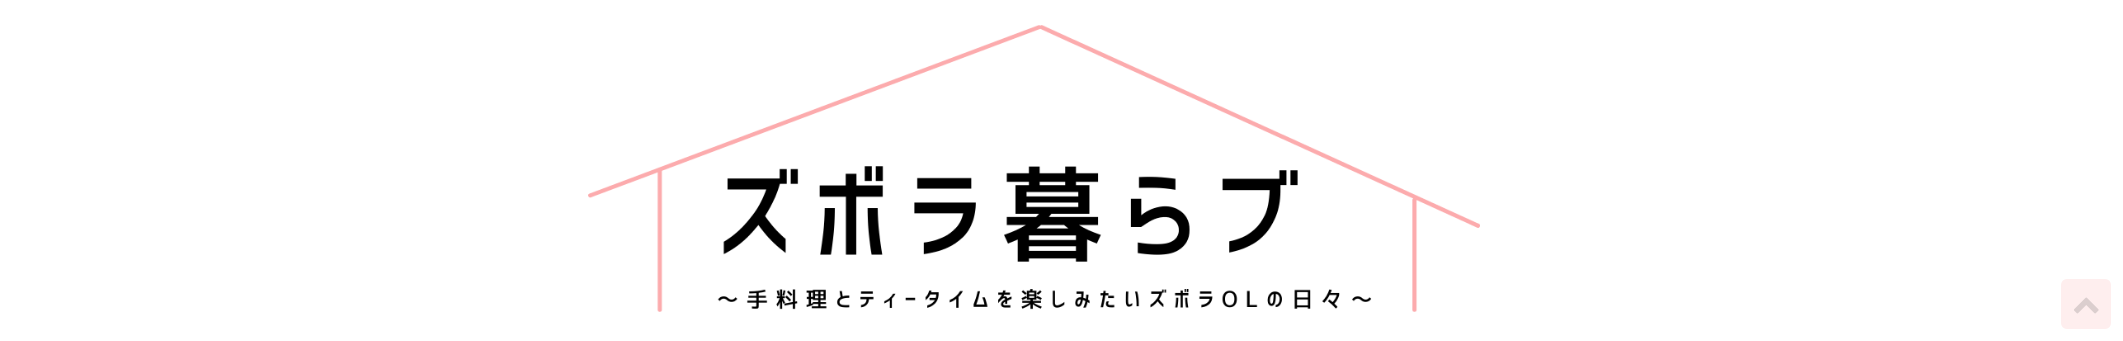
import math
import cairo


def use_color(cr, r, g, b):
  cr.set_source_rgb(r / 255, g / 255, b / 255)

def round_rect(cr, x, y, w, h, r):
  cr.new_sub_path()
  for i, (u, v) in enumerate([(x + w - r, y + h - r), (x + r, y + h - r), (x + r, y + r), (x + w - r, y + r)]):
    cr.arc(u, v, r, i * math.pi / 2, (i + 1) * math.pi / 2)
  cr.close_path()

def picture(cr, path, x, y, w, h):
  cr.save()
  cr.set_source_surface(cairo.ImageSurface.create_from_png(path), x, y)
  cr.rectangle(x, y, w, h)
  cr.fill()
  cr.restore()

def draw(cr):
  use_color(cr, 255, 255, 255)
  cr.paint()
  picture(cr, "img_01.png", 588, 25, 892, 287)
  use_color(cr, 254, 238, 238)
  round_rect(cr, 2061, 279, 50, 50, 6)
  cr.fill()
  picture(cr, "img_02.png", 2074, 297, 25, 17)


surface = cairo.ImageSurface(cairo.FORMAT_RGB24, 2123, 341)
cr = cairo.Context(surface)
options = cairo.FontOptions()
options.set_hint_metrics(cairo.HINT_METRICS_OFF)
options.set_hint_style(cairo.HINT_STYLE_NONE)
cr.set_font_options(options)
cr.set_miter_limit(4)
draw(cr)
surface.write_to_png("out.png")
